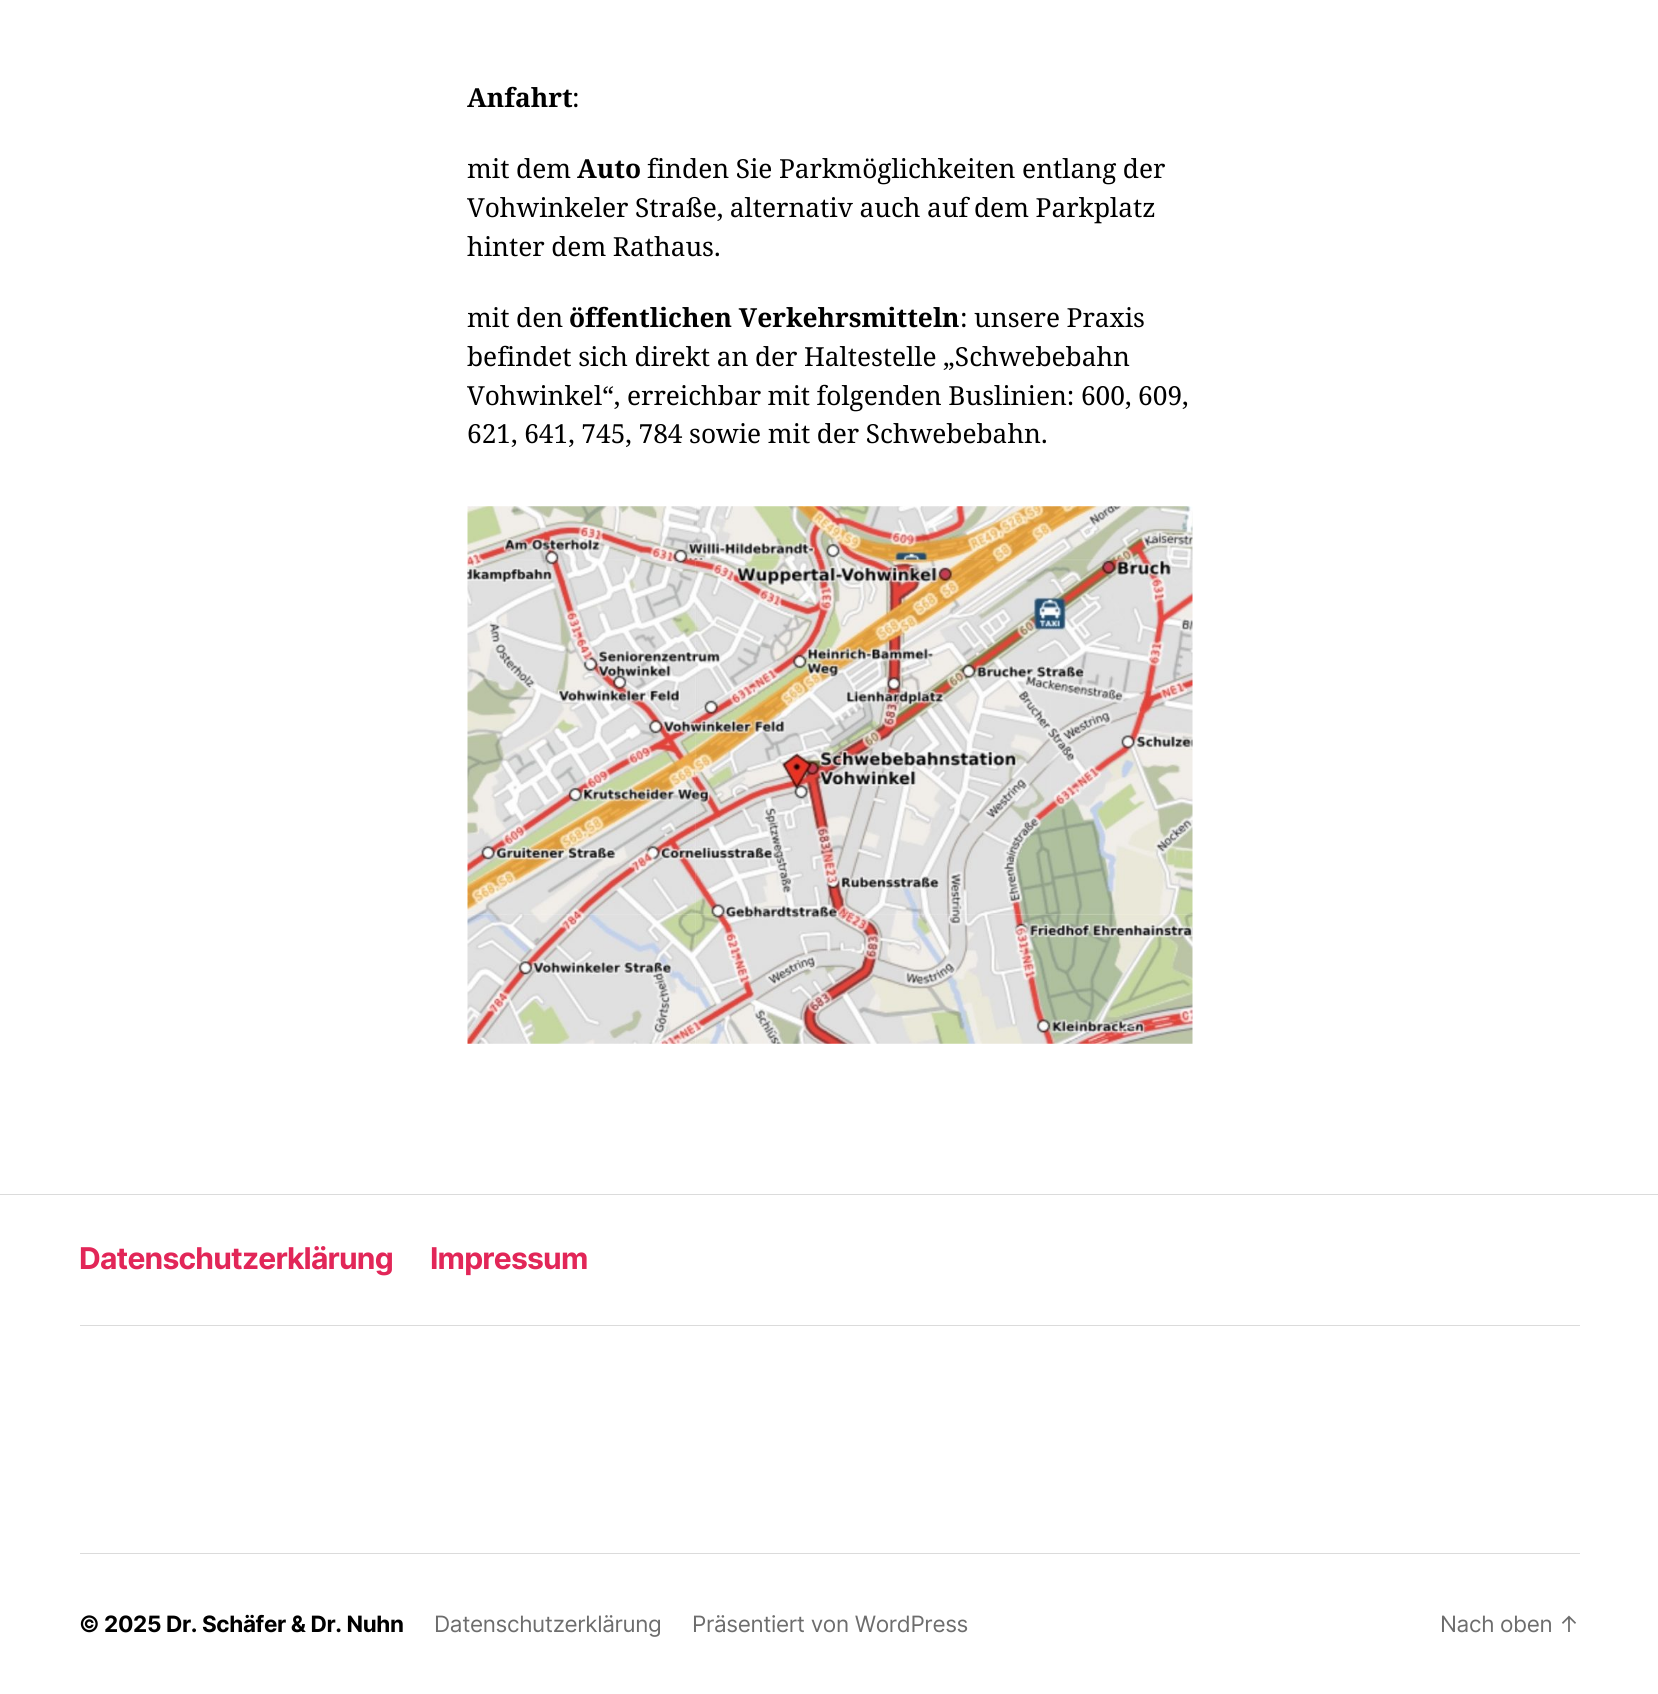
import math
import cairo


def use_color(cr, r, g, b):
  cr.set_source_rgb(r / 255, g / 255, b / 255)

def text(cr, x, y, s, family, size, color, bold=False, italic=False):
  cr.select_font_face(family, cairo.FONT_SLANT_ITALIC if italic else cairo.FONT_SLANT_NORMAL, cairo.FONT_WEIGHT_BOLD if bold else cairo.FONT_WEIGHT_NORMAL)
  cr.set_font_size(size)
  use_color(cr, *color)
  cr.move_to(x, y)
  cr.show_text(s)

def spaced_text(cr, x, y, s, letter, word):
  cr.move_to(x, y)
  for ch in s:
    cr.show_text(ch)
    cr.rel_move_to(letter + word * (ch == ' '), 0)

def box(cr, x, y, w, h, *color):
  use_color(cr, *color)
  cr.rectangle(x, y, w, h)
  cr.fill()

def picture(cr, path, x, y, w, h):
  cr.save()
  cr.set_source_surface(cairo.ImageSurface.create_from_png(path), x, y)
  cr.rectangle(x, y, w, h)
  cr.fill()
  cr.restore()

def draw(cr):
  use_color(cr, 255, 255, 255)
  cr.paint()
  picture(cr, "img_01.png", 467, 506, 726, 538)
  box(cr, 0, 1194, 1658, 1, 219, 219, 219)
  box(cr, 80, 1325, 1500, 1, 219, 219, 219)
  box(cr, 80, 1553, 1500, 1, 219, 219, 219)
  text(cr, 467, 107, "Anfahrt", "Noto Serif", 26.25, (0, 0, 0), bold=True)
  text(cr, 572, 107, ":", "Noto Serif", 26.25, (0, 0, 0))
  spaced_text(cr, 467, 178, "mit dem", 0, -0.25)
  text(cr, 577, 178, "Auto", "Noto Serif", 26.25, (0, 0, 0), bold=True)
  cr.select_font_face("Noto Serif")
  spaced_text(cr, 647, 178, "finden Sie Parkmöglichkeiten entlang der", 0, -0.25)
  spaced_text(cr, 467, 217, "Vohwinkeler Straße, alternativ auch auf", 0, -0.25)
  spaced_text(cr, 974, 217, "dem Parkplatz", 0, -0.25)
  spaced_text(cr, 467, 256, "hinter dem Rathaus.", 0, -0.25)
  spaced_text(cr, 467, 327, "mit den", 0, -0.25)
  text(cr, 569, 327, "öffentlichen Verkehrsmitteln", "Noto Serif", 26.25, (0, 0, 0), bold=True)
  cr.select_font_face("Noto Serif")
  spaced_text(cr, 960, 327, ": unsere Praxis", 0, -0.25)
  spaced_text(cr, 467, 366, "befindet sich direkt an der Haltestelle „Schwebebahn", 0, -0.25)
  spaced_text(cr, 467, 405, "Vohwinkel“, erreichbar mit folgenden Buslinien: 600, 609,", 0, -0.25)
  spaced_text(cr, 467, 443, "621, 641, 745, 784 sowie mit der Schwebebahn.", 0, -0.25)
  cr.select_font_face("Inter", cairo.FONT_SLANT_NORMAL, cairo.FONT_WEIGHT_BOLD)
  cr.set_font_size(30)
  use_color(cr, 226, 38, 88)
  spaced_text(cr, 79, 1269, "Datenschutzerklärung", -0.8, 0)
  spaced_text(cr, 430, 1269, "Impressum", -0.8, 0)
  cr.set_font_size(22.5)
  use_color(cr, 0, 0, 0)
  spaced_text(cr, 79, 1632, "© 2025 Dr. Schäfer & Dr. Nuhn", -0.35, 0)
  cr.select_font_face("Inter")
  use_color(cr, 109, 109, 109)
  spaced_text(cr, 434, 1632, "Datenschutzerklärung", -0.35, 0)
  spaced_text(cr, 692, 1632, "Präsentiert von WordPress", -0.35, 0)
  spaced_text(cr, 1440, 1632, "Nach oben ↑", -0.35, 0)


surface = cairo.ImageSurface(cairo.FORMAT_RGB24, 1658, 1694)
cr = cairo.Context(surface)
options = cairo.FontOptions()
options.set_hint_metrics(cairo.HINT_METRICS_OFF)
options.set_hint_style(cairo.HINT_STYLE_NONE)
cr.set_font_options(options)
cr.set_miter_limit(4)
draw(cr)
surface.write_to_png("out.png")
